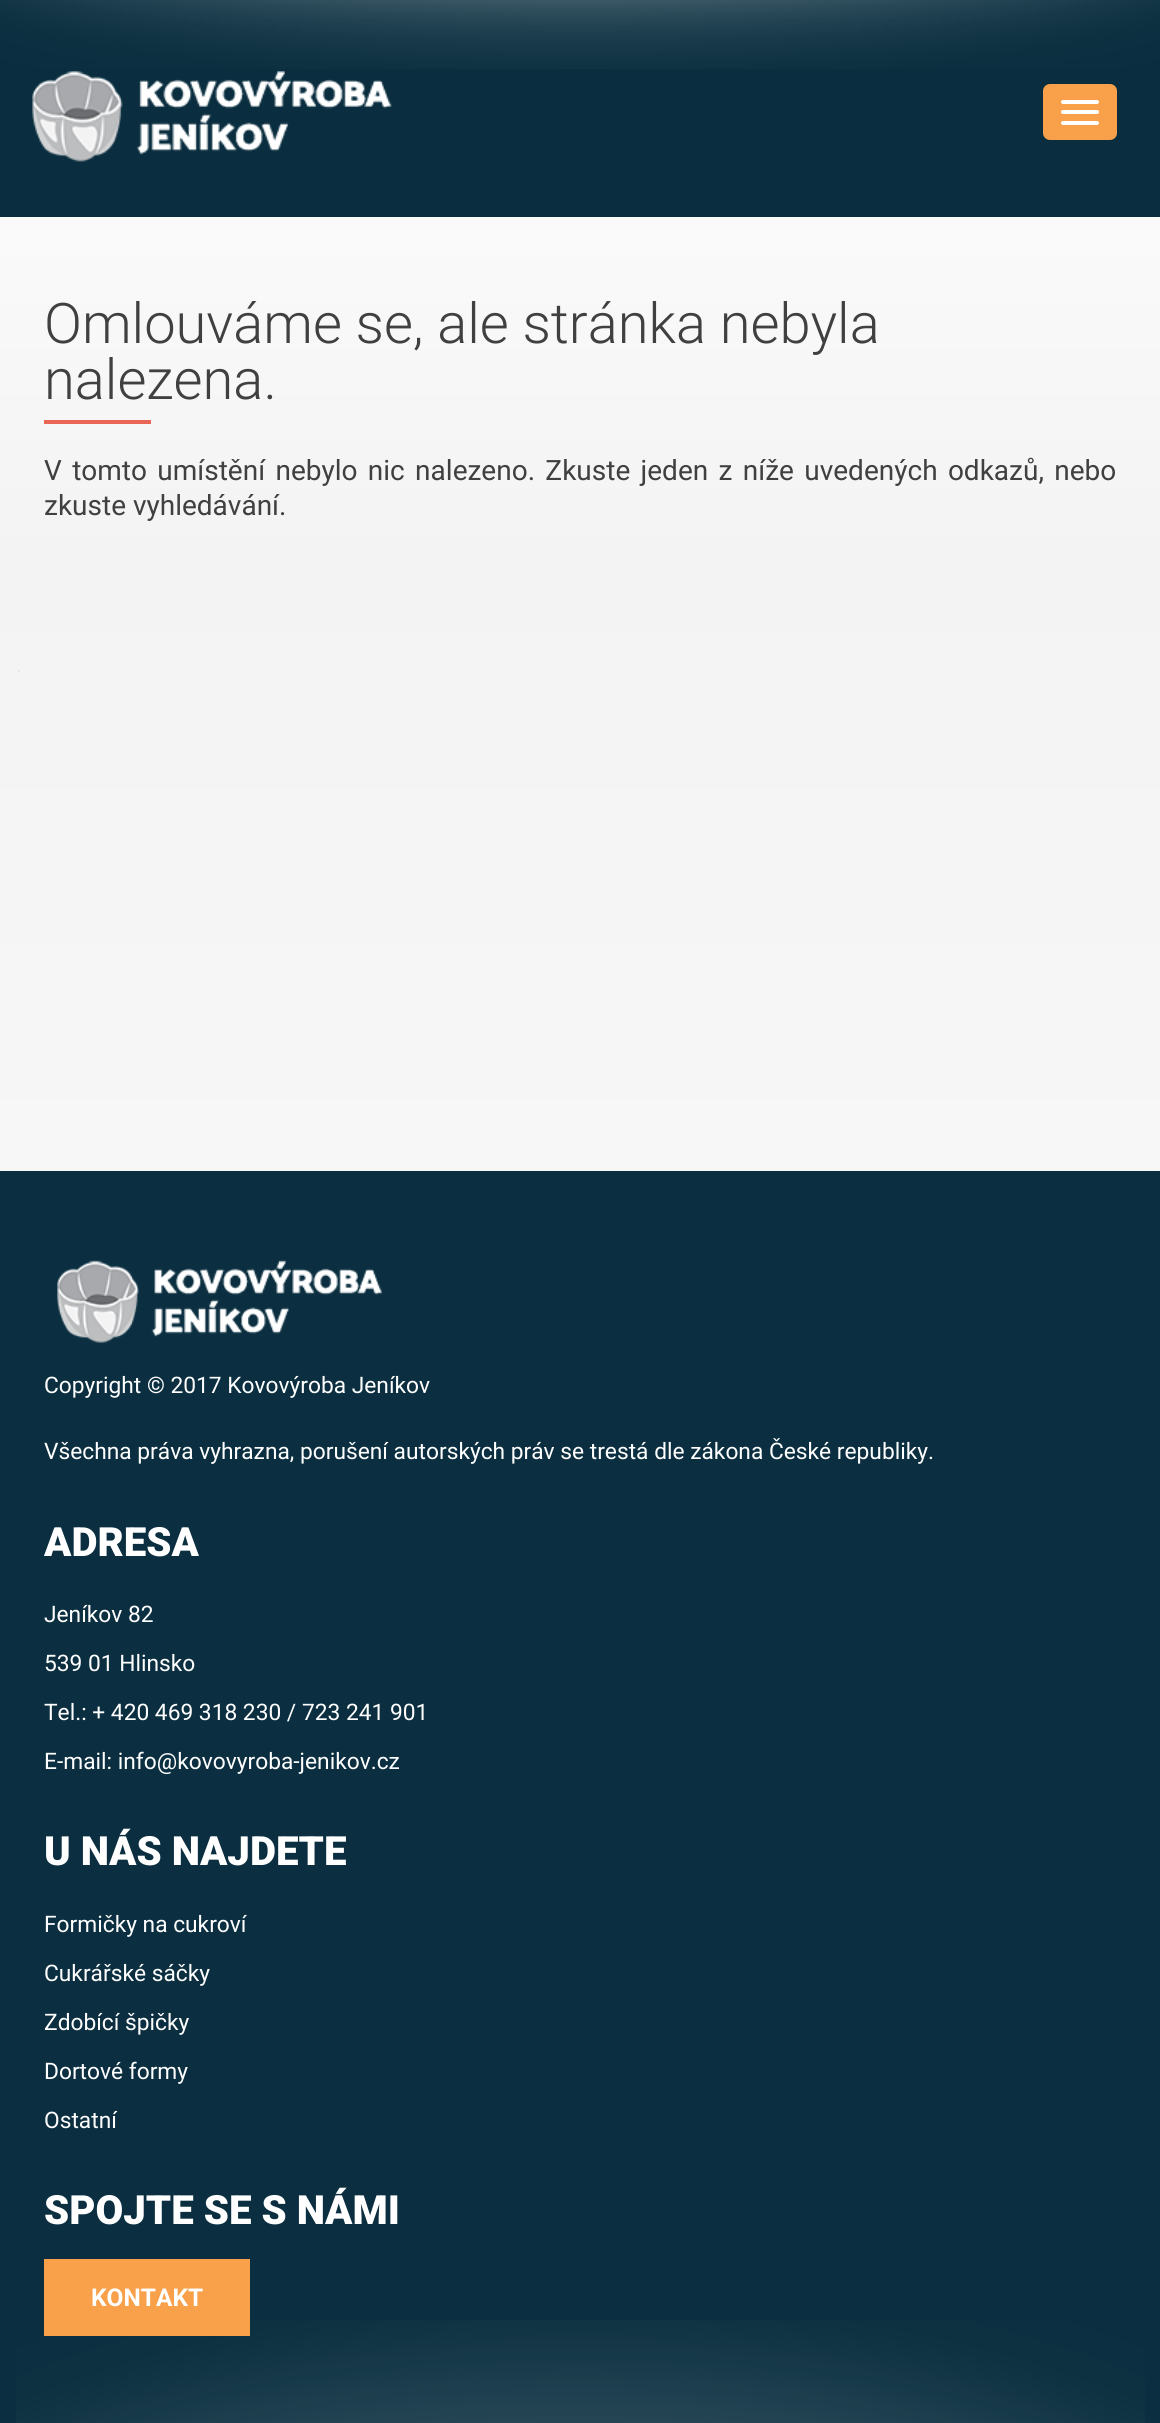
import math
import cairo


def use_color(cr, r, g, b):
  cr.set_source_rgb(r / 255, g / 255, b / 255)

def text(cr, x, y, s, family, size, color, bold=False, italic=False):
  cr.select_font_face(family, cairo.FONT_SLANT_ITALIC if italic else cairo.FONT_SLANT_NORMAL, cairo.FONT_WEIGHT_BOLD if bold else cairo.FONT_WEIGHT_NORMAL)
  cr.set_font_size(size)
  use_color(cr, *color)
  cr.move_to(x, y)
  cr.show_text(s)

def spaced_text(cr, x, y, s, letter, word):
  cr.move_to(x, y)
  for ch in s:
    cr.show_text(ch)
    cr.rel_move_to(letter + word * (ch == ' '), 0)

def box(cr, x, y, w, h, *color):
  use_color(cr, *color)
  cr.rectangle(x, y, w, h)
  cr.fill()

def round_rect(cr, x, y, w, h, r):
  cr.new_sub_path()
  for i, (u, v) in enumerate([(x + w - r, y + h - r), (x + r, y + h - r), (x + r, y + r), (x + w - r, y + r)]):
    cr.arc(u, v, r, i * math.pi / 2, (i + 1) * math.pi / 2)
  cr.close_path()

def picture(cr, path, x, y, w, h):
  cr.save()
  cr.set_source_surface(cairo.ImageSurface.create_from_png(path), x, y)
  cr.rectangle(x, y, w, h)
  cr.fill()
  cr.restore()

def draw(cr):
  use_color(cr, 255, 255, 255)
  cr.paint()
  gradient = cairo.LinearGradient(580, 0, 580, 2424)
  gradient.add_color_stop_rgba(0, 1, 1, 1, 1)
  gradient.add_color_stop_rgba(0.23, 0.949, 0.953, 0.949, 1)
  gradient.add_color_stop_rgba(1, 1, 1, 1, 1)
  cr.set_source(gradient)
  cr.rectangle(0, 217, 1160, 954)
  cr.fill()
  box(cr, 0, 0, 1160, 217, 10, 46, 63)
  picture(cr, "img_01.png", 0, 0, 1160, 69)
  picture(cr, "img_02.png", 32, 71, 360, 91)
  use_color(cr, 248, 160, 74)
  round_rect(cr, 1043, 84, 74, 56, 7)
  cr.fill()
  use_color(cr, 255, 255, 255)
  round_rect(cr, 1061, 100, 38, 4, 2)
  cr.fill()
  round_rect(cr, 1061, 110, 38, 4, 2)
  cr.fill()
  round_rect(cr, 1061, 121, 38, 4, 2)
  cr.fill()
  box(cr, 44, 420, 107, 4, 233, 102, 86)
  box(cr, 18, 670, 2, 2, 231, 232, 231)
  box(cr, 0, 1171, 1160, 1252, 11, 47, 64)
  picture(cr, "img_03.png", 16, 2320, 1129, 103)
  picture(cr, "img_04.png", 57, 1260, 325, 83)
  box(cr, 44, 2259, 206, 77, 248, 160, 74)
  text(cr, 44, 343, "Omlouváme se, ale stránka nebyla", "Roboto Light", 56, (64, 64, 64))
  text(cr, 44, 399, "nalezena.", "Roboto Light", 56, (64, 64, 64))
  cr.select_font_face("Roboto")
  cr.set_font_size(28)
  spaced_text(cr, 44, 480, "V tomto umístění nebylo nic nalezeno. Zkuste jeden z níže uvedených odkazů, nebo", 0, 3.4)
  text(cr, 44, 515, "zkuste vyhledávání.", "Roboto", 28, (64, 64, 64))
  text(cr, 44, 1393, "Copyright © 2017 Kovovýroba Jeníkov", "Roboto", 22.75, (255, 255, 255))
  text(cr, 44, 1459, "Všechna práva vyhrazna, porušení autorských práv se trestá dle zákona České republiky.", "Roboto", 22.75, (255, 255, 255))
  text(cr, 44, 1556, "ADRESA", "Roboto Black", 40.25, (255, 255, 255))
  text(cr, 44, 1622, "Jeníkov 82", "Roboto", 22.75, (255, 255, 255))
  text(cr, 44, 1671, "539 01 Hlinsko", "Roboto", 22.75, (255, 255, 255))
  text(cr, 44, 1720, "Tel.: + 420 469 318 230 / 723 241 901", "Roboto", 22.75, (255, 255, 255))
  text(cr, 44, 1769, "E-mail: info@kovovyroba-jenikov.cz", "Roboto", 22.75, (255, 255, 255))
  text(cr, 44, 1865, "U NÁS NAJDETE", "Roboto Black", 40.25, (255, 255, 255))
  text(cr, 44, 1932, "Formičky na cukroví", "Roboto", 22.75, (255, 255, 255))
  text(cr, 44, 1981, "Cukrářské sáčky", "Roboto", 22.75, (255, 255, 255))
  text(cr, 44, 2030, "Zdobící špičky", "Roboto", 22.75, (255, 255, 255))
  text(cr, 44, 2079, "Dortové formy", "Roboto", 22.75, (255, 255, 255))
  text(cr, 44, 2128, "Ostatní", "Roboto", 22.75, (255, 255, 255))
  text(cr, 44, 2224, "SPOJTE SE S NÁMI", "Roboto Black", 40.25, (255, 255, 255))
  text(cr, 91, 2306, "KONTAKT", "Roboto", 24.5, (255, 255, 255), bold=True)


surface = cairo.ImageSurface(cairo.FORMAT_RGB24, 1160, 2423)
cr = cairo.Context(surface)
options = cairo.FontOptions()
options.set_hint_metrics(cairo.HINT_METRICS_OFF)
options.set_hint_style(cairo.HINT_STYLE_NONE)
cr.set_font_options(options)
cr.set_miter_limit(4)
draw(cr)
surface.write_to_png("out.png")
